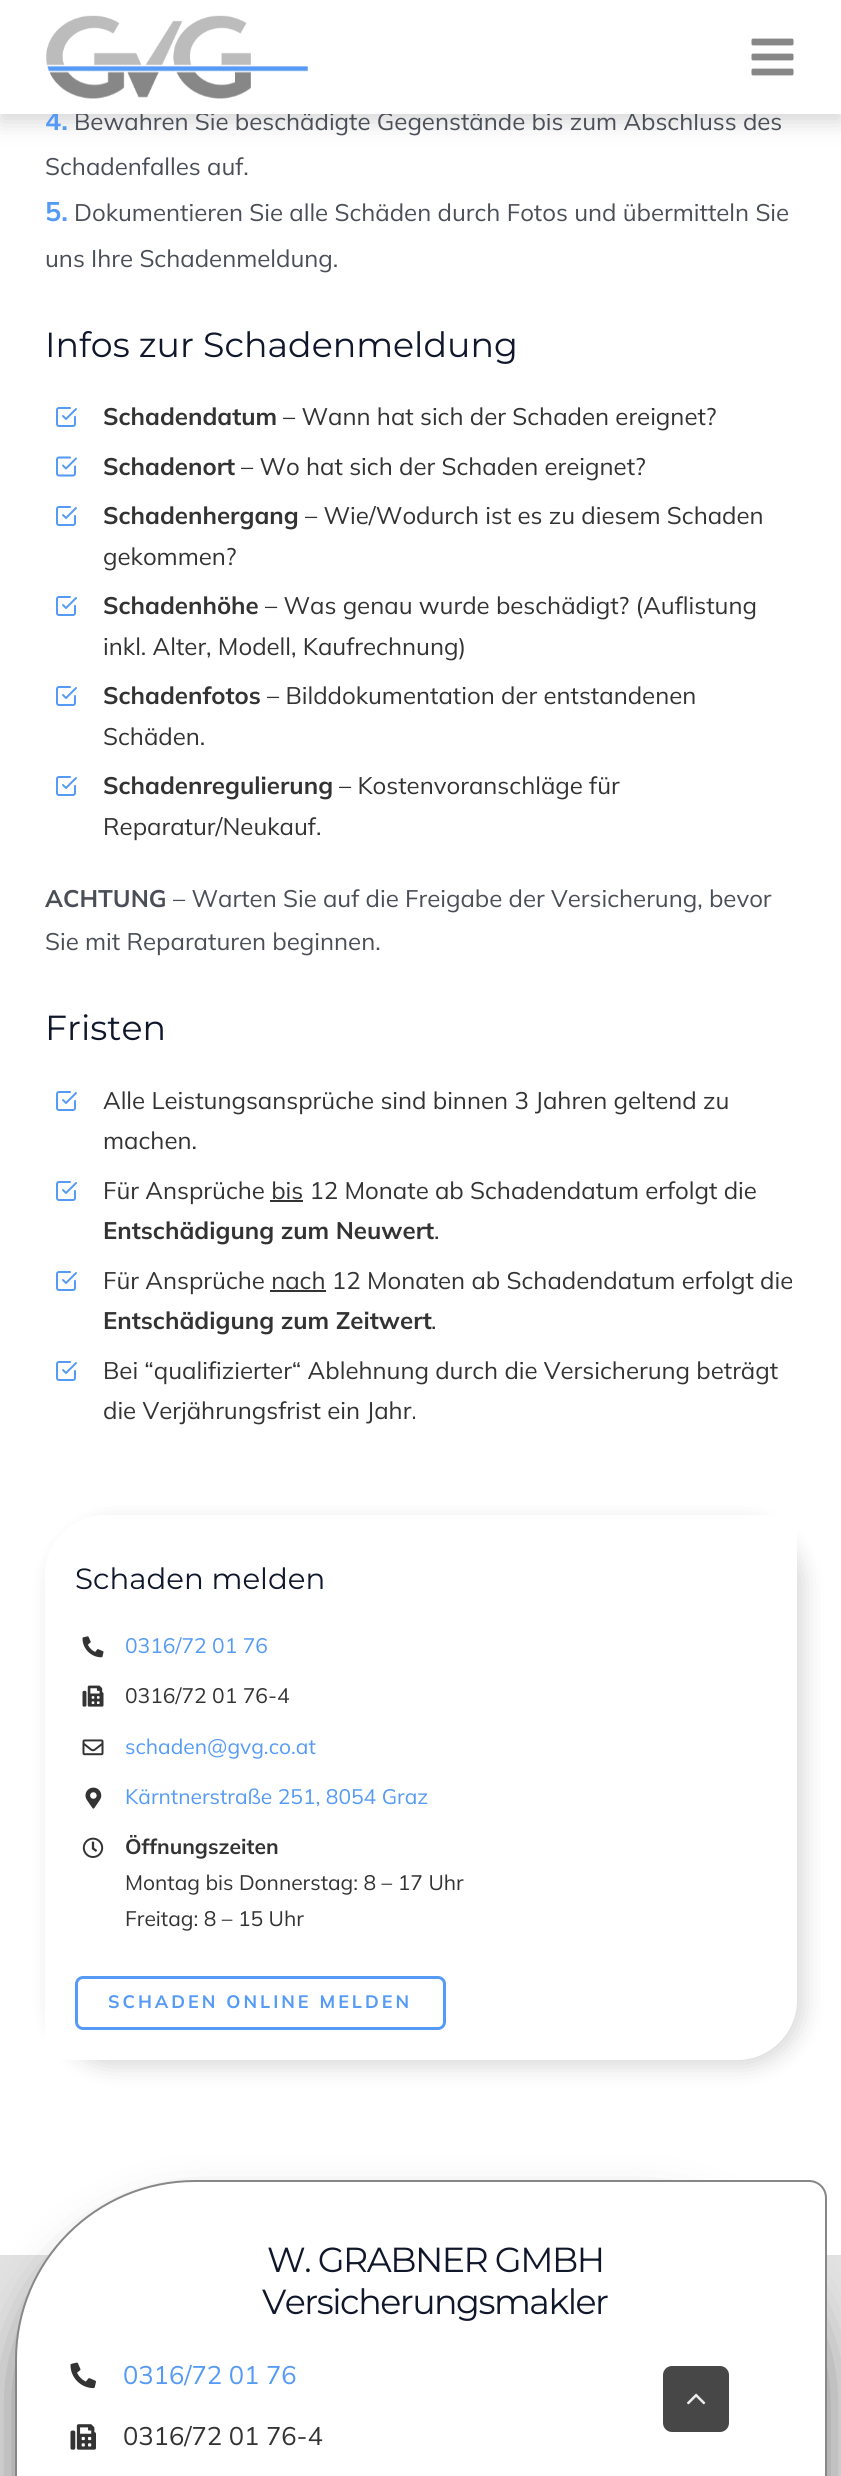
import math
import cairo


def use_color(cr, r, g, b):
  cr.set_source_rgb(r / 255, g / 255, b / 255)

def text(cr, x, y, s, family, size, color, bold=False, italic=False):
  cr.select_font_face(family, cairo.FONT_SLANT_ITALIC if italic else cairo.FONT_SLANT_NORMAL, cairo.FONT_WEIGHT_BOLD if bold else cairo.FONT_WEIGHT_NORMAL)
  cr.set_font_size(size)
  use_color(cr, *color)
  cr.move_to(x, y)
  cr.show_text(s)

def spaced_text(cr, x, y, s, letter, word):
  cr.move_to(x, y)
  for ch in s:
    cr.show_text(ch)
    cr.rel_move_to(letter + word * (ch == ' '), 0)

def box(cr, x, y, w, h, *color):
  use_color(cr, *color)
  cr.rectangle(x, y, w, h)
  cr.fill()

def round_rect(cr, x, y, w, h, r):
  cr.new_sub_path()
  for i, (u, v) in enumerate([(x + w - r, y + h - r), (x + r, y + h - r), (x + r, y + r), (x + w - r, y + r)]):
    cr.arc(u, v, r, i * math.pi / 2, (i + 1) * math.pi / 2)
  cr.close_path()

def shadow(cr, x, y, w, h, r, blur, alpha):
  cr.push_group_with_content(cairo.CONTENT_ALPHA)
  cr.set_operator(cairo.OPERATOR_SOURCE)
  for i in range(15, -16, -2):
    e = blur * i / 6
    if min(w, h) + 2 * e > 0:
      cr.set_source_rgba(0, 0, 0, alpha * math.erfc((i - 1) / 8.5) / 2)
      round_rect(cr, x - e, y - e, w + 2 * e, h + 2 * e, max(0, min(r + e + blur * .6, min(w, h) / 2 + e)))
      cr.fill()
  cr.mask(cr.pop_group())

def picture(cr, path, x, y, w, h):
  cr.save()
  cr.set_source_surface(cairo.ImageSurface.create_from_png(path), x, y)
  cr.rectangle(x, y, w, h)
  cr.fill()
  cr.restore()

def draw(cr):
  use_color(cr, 255, 255, 255)
  cr.paint()
  use_color(cr, 51, 51, 51)
  shadow(cr, 0, 8, 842, 114, 0, 11, 0.2)
  picture(cr, "img_03.png", 56, 407, 21, 20)
  picture(cr, "img_04.png", 56, 456, 21, 21)
  picture(cr, "img_03.png", 56, 506, 21, 20)
  picture(cr, "img_03.png", 56, 596, 21, 20)
  picture(cr, "img_03.png", 56, 686, 21, 20)
  picture(cr, "img_03.png", 56, 776, 21, 20)
  picture(cr, "img_03.png", 56, 1091, 21, 20)
  picture(cr, "img_03.png", 56, 1181, 21, 20)
  box(cr, 270, 1200, 33, 2, 51, 51, 51)
  picture(cr, "img_03.png", 56, 1271, 21, 20)
  box(cr, 270, 1290, 56, 2, 51, 51, 51)
  picture(cr, "img_03.png", 56, 1361, 21, 20)
  cr.save()
  cr.set_fill_rule(cairo.FILL_RULE_EVEN_ODD)
  cr.new_path()
  cr.move_to(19, 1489)
  cr.line_to(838, 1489)
  cr.line_to(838, 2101)
  cr.line_to(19, 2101)
  cr.close_path()
  cr.move_to(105, 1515)
  cr.line_to(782, 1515)
  cr.curve_to(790.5, 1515, 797, 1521.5, 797, 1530)
  cr.line_to(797, 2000)
  cr.curve_to(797, 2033, 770, 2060, 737, 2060)
  cr.line_to(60, 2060)
  cr.curve_to(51.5, 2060, 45, 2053.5, 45, 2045)
  cr.line_to(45, 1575)
  cr.curve_to(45, 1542, 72, 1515, 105, 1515)
  cr.close_path()
  cr.clip()
  use_color(cr, 0, 0, 0)
  shadow(cr, 53, 1523, 751, 544, 60, 11, 0.15)
  cr.restore()
  picture(cr, "img_05.png", 82, 1636, 22, 22)
  picture(cr, "img_06.png", 82, 1685, 22, 22)
  picture(cr, "img_07.png", 82, 1739, 22, 17)
  picture(cr, "img_08.png", 85, 1787, 17, 22)
  picture(cr, "img_09.png", 82, 1837, 22, 21)
  round_rect(cr, 76.5, 1977.5, 368, 51, 6.5)
  use_color(cr, 85, 154, 245)
  cr.set_line_width(3)
  cr.stroke()
  box(cr, 0, 2255, 841, 221, 226, 226, 226)
  use_color(cr, 0, 0, 0)
  shadow(cr, 15, 2210, 812, 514, 180, 22.5, 0.4)
  use_color(cr, 255, 255, 255)
  cr.new_path()
  cr.move_to(195, 2181)
  cr.line_to(809, 2181)
  cr.curve_to(818.5, 2181, 826, 2188.5, 826, 2198)
  cr.line_to(826, 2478)
  cr.curve_to(826, 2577, 746, 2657, 647, 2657)
  cr.line_to(33, 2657)
  cr.curve_to(23.5, 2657, 16, 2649.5, 16, 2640)
  cr.line_to(16, 2360)
  cr.curve_to(16, 2261, 96, 2181, 195, 2181)
  cr.close_path()
  cr.fill_preserve()
  use_color(cr, 135, 135, 135)
  cr.set_line_width(2)
  cr.stroke()
  picture(cr, "img_10.png", 70, 2362, 26, 27)
  picture(cr, "img_11.png", 70, 2424, 26, 26)
  use_color(cr, 71, 71, 71)
  round_rect(cr, 663, 2366, 66, 66, 9)
  cr.fill()
  picture(cr, "img_12.png", 687, 2393, 19, 12)
  text(cr, 45, 130, "4.", "Mulish", 27, (85, 154, 245), bold=True)
  text(cr, 74, 130, "Bewahren Sie beschädigte Gegenstände bis zum Abschluss des", "Mulish", 24, (74, 78, 87))
  box(cr, 0, 0, 841, 114, 255, 255, 255)
  picture(cr, "img_01.png", 45, 15, 263, 84)
  picture(cr, "img_02.png", 751, 38, 43, 38)
  text(cr, 45, 175, "Schadenfalles auf.", "Mulish", 24, (74, 78, 87))
  text(cr, 45, 221, "5.", "Mulish", 27, (85, 154, 245), bold=True)
  text(cr, 74, 221, "Dokumentieren Sie alle Schäden durch Fotos und übermitteln Sie", "Mulish", 24, (74, 78, 87))
  text(cr, 45, 267, "uns Ihre Schadenmeldung.", "Mulish", 24, (74, 78, 87))
  text(cr, 45, 357, "Infos zur Schadenmeldung", "Montserrat Thin", 34.8, (16, 23, 43))
  text(cr, 103, 425, "Schadendatum", "Mulish", 24, (51, 51, 51), bold=True)
  text(cr, 283, 425, "– Wann hat sich der Schaden ereignet?", "Mulish", 24, (51, 51, 51))
  text(cr, 103, 475, "Schadenort", "Mulish", 24, (51, 51, 51), bold=True)
  text(cr, 241, 475, "– Wo hat sich der Schaden ereignet?", "Mulish", 24, (51, 51, 51))
  text(cr, 103, 524, "Schadenhergang", "Mulish", 24, (51, 51, 51), bold=True)
  text(cr, 305, 524, "– Wie/Wodurch ist es zu diesem Schaden", "Mulish", 24, (51, 51, 51))
  text(cr, 103, 565, "gekommen?", "Mulish", 24, (51, 51, 51))
  text(cr, 103, 614, "Schadenhöhe", "Mulish", 24, (51, 51, 51), bold=True)
  text(cr, 265, 614, "– Was genau wurde beschädigt? (Auflistung", "Mulish", 24, (51, 51, 51))
  text(cr, 103, 655, "inkl. Alter, Modell, Kaufrechnung)", "Mulish", 24, (51, 51, 51))
  text(cr, 103, 704, "Schadenfotos", "Mulish", 24, (51, 51, 51), bold=True)
  text(cr, 267, 704, "– Bilddokumentation der entstandenen", "Mulish", 24, (51, 51, 51))
  text(cr, 103, 745, "Schäden.", "Mulish", 24, (51, 51, 51))
  text(cr, 103, 794, "Schadenregulierung", "Mulish", 24, (51, 51, 51), bold=True)
  text(cr, 339, 794, "– Kostenvoranschläge für", "Mulish", 24, (51, 51, 51))
  text(cr, 103, 835, "Reparatur/Neukauf.", "Mulish", 24, (51, 51, 51))
  text(cr, 45, 907, "ACHTUNG", "Mulish", 24, (74, 78, 87), bold=True)
  text(cr, 173, 907, "– Warten Sie auf die Freigabe der Versicherung, bevor", "Mulish", 24, (74, 78, 87))
  text(cr, 45, 950, "Sie mit Reparaturen beginnen.", "Mulish", 24, (74, 78, 87))
  text(cr, 45, 1040, "Fristen", "Montserrat Thin", 34.8, (16, 23, 43))
  text(cr, 103, 1109, "Alle Leistungsansprüche sind binnen 3 Jahren geltend zu", "Mulish", 24, (51, 51, 51))
  text(cr, 103, 1149, "machen.", "Mulish", 24, (51, 51, 51))
  text(cr, 103, 1199, "Für Ansprüche bis 12 Monate ab Schadendatum erfolgt die", "Mulish", 24, (51, 51, 51))
  text(cr, 103, 1239, "Entschädigung zum Neuwert", "Mulish", 24, (51, 51, 51), bold=True)
  text(cr, 434, 1239, ".", "Mulish", 24, (51, 51, 51))
  text(cr, 103, 1289, "Für Ansprüche nach 12 Monaten ab Schadendatum erfolgt die", "Mulish", 24, (51, 51, 51))
  text(cr, 103, 1329, "Entschädigung zum Zeitwert", "Mulish", 24, (51, 51, 51), bold=True)
  text(cr, 431, 1329, ".", "Mulish", 24, (51, 51, 51))
  text(cr, 103, 1379, "Bei “qualifizierter“ Ablehnung durch die Versicherung beträgt", "Mulish", 24, (51, 51, 51))
  text(cr, 103, 1419, "die Verjährungsfrist ein Jahr.", "Mulish", 24, (51, 51, 51))
  text(cr, 75, 1589, "Schaden melden", "Montserrat Thin", 29.25, (16, 23, 43))
  text(cr, 125, 1653, "0316/72 01 76", "Mulish", 21, (85, 154, 245))
  text(cr, 125, 1703, "0316/72 01 76-4", "Mulish", 21, (51, 51, 51))
  text(cr, 125, 1754, "schaden@gvg.co.at", "Mulish", 21, (85, 154, 245))
  text(cr, 125, 1804, "Kärntnerstraße 251, 8054 Graz", "Mulish", 21, (85, 154, 245))
  text(cr, 125, 1854, "Öffnungszeiten", "Mulish", 21, (51, 51, 51), bold=True)
  text(cr, 125, 1890, "Montag bis Donnerstag: 8 – 17 Uhr", "Mulish", 21, (51, 51, 51))
  text(cr, 125, 1926, "Freitag: 8 – 15 Uhr", "Mulish", 21, (51, 51, 51))
  cr.select_font_face("Mulish", cairo.FONT_SLANT_NORMAL, cairo.FONT_WEIGHT_BOLD)
  cr.set_font_size(18)
  use_color(cr, 85, 154, 245)
  spaced_text(cr, 108, 2008, "SCHADEN ONLINE MELDEN", 3, 0)
  cr.select_font_face("Montserrat Thin")
  cr.set_font_size(34.8)
  use_color(cr, 16, 23, 43)
  spaced_text(cr, 267, 2272, "W. GRABNER GMBH", -1.5, 0)
  spaced_text(cr, 262, 2314, "Versicherungsmakler", -1.5, 0)
  text(cr, 123, 2384, "0316/72 01 76", "Mulish", 25.5, (85, 154, 245))
  text(cr, 123, 2445, "0316/72 01 76-4", "Mulish", 25.5, (51, 51, 51))


surface = cairo.ImageSurface(cairo.FORMAT_RGB24, 841, 2476)
cr = cairo.Context(surface)
options = cairo.FontOptions()
options.set_hint_metrics(cairo.HINT_METRICS_OFF)
options.set_hint_style(cairo.HINT_STYLE_NONE)
cr.set_font_options(options)
cr.set_miter_limit(4)
draw(cr)
surface.write_to_png("out.png")
